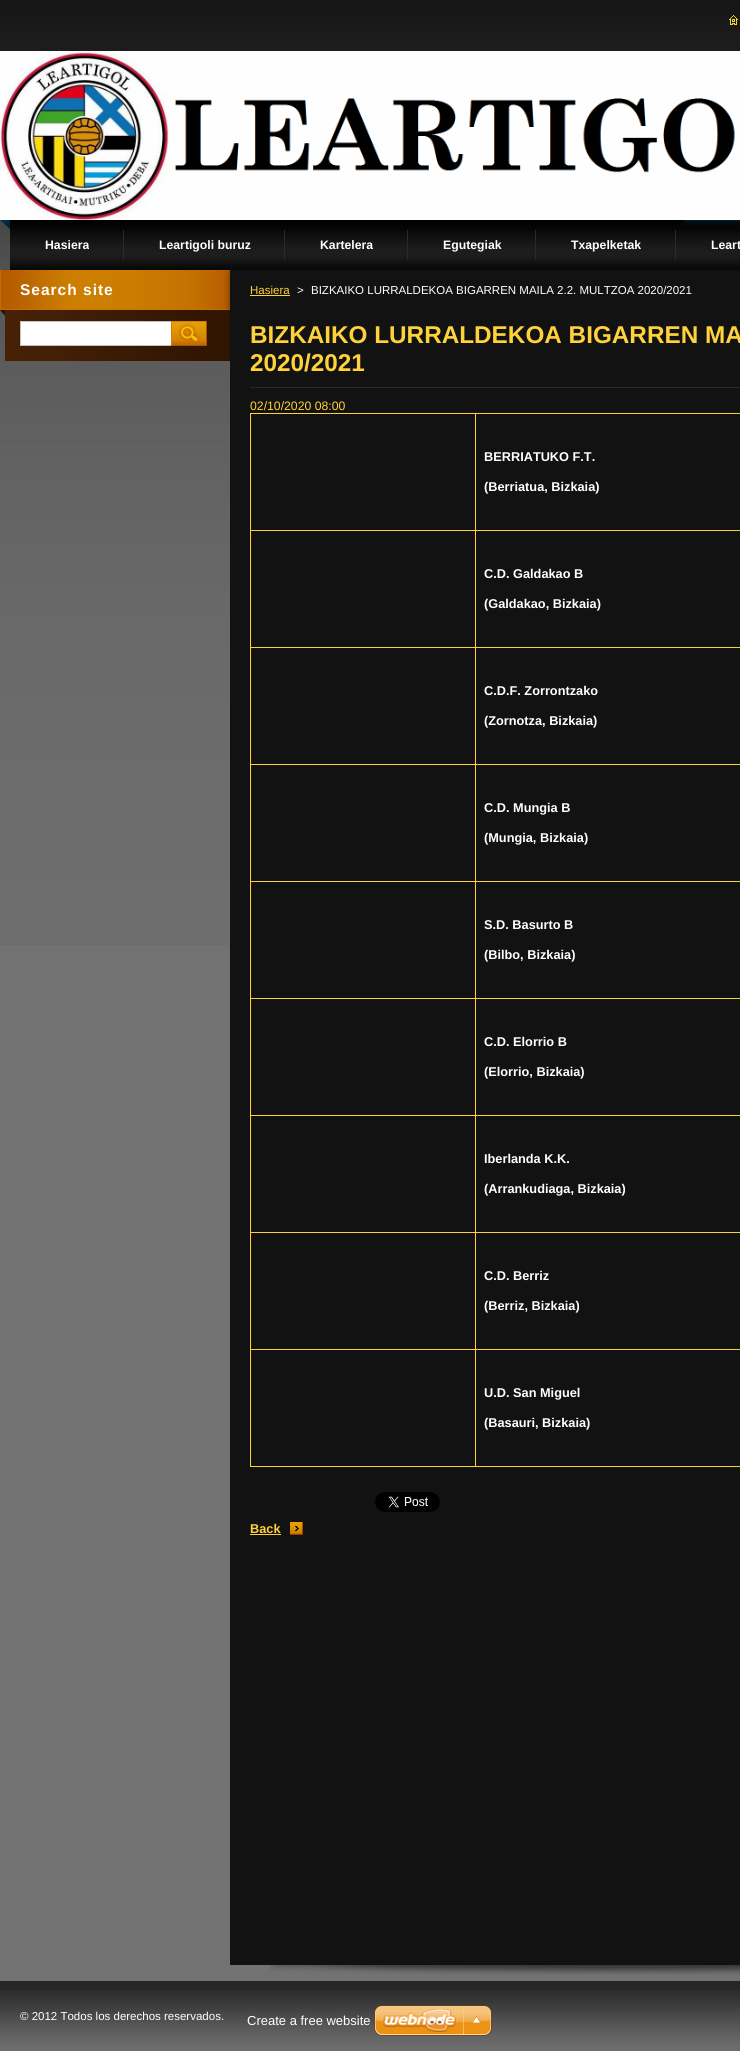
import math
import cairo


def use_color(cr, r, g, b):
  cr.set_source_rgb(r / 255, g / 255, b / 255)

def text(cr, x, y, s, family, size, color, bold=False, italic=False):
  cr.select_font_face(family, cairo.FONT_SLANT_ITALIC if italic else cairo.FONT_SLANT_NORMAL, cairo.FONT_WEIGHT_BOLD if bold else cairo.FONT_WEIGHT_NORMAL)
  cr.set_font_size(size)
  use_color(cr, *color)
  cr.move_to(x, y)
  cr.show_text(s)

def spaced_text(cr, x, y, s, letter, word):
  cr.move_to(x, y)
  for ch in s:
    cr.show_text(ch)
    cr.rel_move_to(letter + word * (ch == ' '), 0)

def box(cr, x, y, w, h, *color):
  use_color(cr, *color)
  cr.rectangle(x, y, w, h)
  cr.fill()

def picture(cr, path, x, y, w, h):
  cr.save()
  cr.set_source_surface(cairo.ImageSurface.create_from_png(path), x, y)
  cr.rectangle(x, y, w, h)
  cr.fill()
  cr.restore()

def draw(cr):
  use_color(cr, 114, 114, 114)
  cr.paint()
  picture(cr, "img_01.png", 0, 0, 740, 945)
  picture(cr, "img_02.png", 729, 15, 9, 10)
  picture(cr, "img_03.png", 0, 51, 740, 169)
  picture(cr, "img_04.png", 0, 220, 740, 50)
  box(cr, 123, 230, 1, 30, 42, 42, 42)
  box(cr, 284, 230, 1, 30, 42, 42, 42)
  box(cr, 407, 230, 1, 30, 42, 42, 42)
  box(cr, 535, 230, 1, 30, 42, 42, 42)
  box(cr, 675, 230, 1, 30, 42, 42, 42)
  picture(cr, "img_05.png", 5, 316, 225, 45)
  picture(cr, "img_06.png", 0, 270, 230, 46)
  use_color(cr, 255, 255, 255)
  cr.rectangle(20.5, 321.5, 151, 24)
  cr.fill_preserve()
  use_color(cr, 193, 193, 193)
  cr.set_line_width(1)
  cr.stroke()
  picture(cr, "img_07.png", 171, 321, 36, 25)
  picture(cr, "img_08.png", 270, 1965, 470, 10)
  box(cr, 230, 270, 510, 1695, 18, 18, 18)
  box(cr, 250, 295, 40, 1, 255, 210, 58)
  box(cr, 250, 387, 490, 1, 42, 42, 42)
  box(cr, 475, 413, 265, 1, 255, 210, 58)
  box(cr, 475, 530, 265, 1, 255, 210, 58)
  box(cr, 475, 647, 265, 1, 255, 210, 58)
  box(cr, 475, 764, 265, 1, 255, 210, 58)
  box(cr, 475, 881, 265, 1, 255, 210, 58)
  box(cr, 475, 998, 265, 1, 255, 210, 58)
  box(cr, 475, 1115, 265, 1, 255, 210, 58)
  box(cr, 475, 1232, 265, 1, 255, 210, 58)
  box(cr, 475, 1349, 265, 1, 255, 210, 58)
  box(cr, 475, 1466, 265, 1, 255, 210, 58)
  box(cr, 475, 1349, 1, 118, 255, 210, 58)
  box(cr, 250, 1349, 226, 1, 255, 210, 58)
  box(cr, 475, 1232, 1, 118, 255, 210, 58)
  box(cr, 250, 1232, 226, 1, 255, 210, 58)
  box(cr, 475, 1115, 1, 118, 255, 210, 58)
  box(cr, 250, 1115, 226, 1, 255, 210, 58)
  box(cr, 475, 998, 1, 118, 255, 210, 58)
  box(cr, 250, 998, 226, 1, 255, 210, 58)
  box(cr, 475, 881, 1, 118, 255, 210, 58)
  box(cr, 250, 881, 226, 1, 255, 210, 58)
  box(cr, 475, 764, 1, 118, 255, 210, 58)
  box(cr, 250, 764, 226, 1, 255, 210, 58)
  box(cr, 475, 647, 1, 118, 255, 210, 58)
  box(cr, 250, 647, 226, 1, 255, 210, 58)
  box(cr, 475, 530, 1, 118, 255, 210, 58)
  box(cr, 250, 530, 226, 1, 255, 210, 58)
  box(cr, 475, 413, 1, 118, 255, 210, 58)
  box(cr, 250, 413, 226, 1, 255, 210, 58)
  box(cr, 250, 1466, 226, 1, 255, 210, 58)
  box(cr, 250, 1349, 1, 118, 255, 210, 58)
  box(cr, 250, 1232, 1, 118, 255, 210, 58)
  box(cr, 250, 1115, 1, 118, 255, 210, 58)
  box(cr, 250, 998, 1, 118, 255, 210, 58)
  box(cr, 250, 881, 1, 118, 255, 210, 58)
  box(cr, 250, 764, 1, 118, 255, 210, 58)
  box(cr, 250, 647, 1, 118, 255, 210, 58)
  box(cr, 250, 530, 1, 118, 255, 210, 58)
  box(cr, 250, 413, 1, 118, 255, 210, 58)
  picture(cr, "img_09.png", 375, 1492, 65, 20)
  picture(cr, "img_10.png", 290, 1522, 13, 13)
  box(cr, 250, 1534, 31, 1, 255, 210, 58)
  box(cr, 0, 1981, 740, 9, 39, 39, 39)
  picture(cr, "img_11.png", 0, 1990, 740, 61)
  picture(cr, "img_12.png", 374, 2005, 118, 31)
  text(cr, 45, 249, "Hasiera", "Liberation Sans", 12.25, (255, 255, 255), bold=True)
  text(cr, 159, 249, "Leartigoli buruz", "Liberation Sans", 12.25, (255, 255, 255), bold=True)
  text(cr, 320, 249, "Kartelera", "Liberation Sans", 12.25, (255, 255, 255), bold=True)
  text(cr, 443, 249, "Egutegiak", "Liberation Sans", 12.25, (255, 255, 255), bold=True)
  text(cr, 571, 249, "Txapelketak", "Liberation Sans", 12.25, (255, 255, 255), bold=True)
  text(cr, 711, 249, "Leart", "Liberation Sans", 12.25, (255, 255, 255), bold=True)
  cr.set_font_size(15.5)
  spaced_text(cr, 20, 295, "Search site", 1, 0)
  text(cr, 250, 294, "Hasiera", "Liberation Sans", 11.5, (255, 210, 58))
  text(cr, 297, 294, ">", "Liberation Sans", 11.5, (255, 255, 255))
  text(cr, 311, 294, "BIZKAIKO LURRALDEKOA BIGARREN MAILA 2.2. MULTZOA 2020/2021", "Liberation Sans", 11.5, (255, 255, 255))
  text(cr, 250, 343, "BIZKAIKO LURRALDEKOA BIGARREN MA", "Liberation Sans", 24.3, (255, 210, 58), bold=True)
  text(cr, 250, 371, "2020/2021", "Liberation Sans", 24.3, (255, 210, 58), bold=True)
  text(cr, 250, 410, "02/10/2020 08:00", "Liberation Sans", 12.25, (255, 210, 58))
  text(cr, 484, 461, "BERRIATUKO F.T.", "Liberation Sans", 12.75, (255, 255, 255), bold=True)
  text(cr, 484, 491, "(Berriatua, Bizkaia)", "Liberation Sans", 12.75, (255, 255, 255), bold=True)
  text(cr, 484, 578, "C.D. Galdakao B", "Liberation Sans", 12.75, (255, 255, 255), bold=True)
  text(cr, 484, 608, "(Galdakao, Bizkaia)", "Liberation Sans", 12.75, (255, 255, 255), bold=True)
  text(cr, 484, 695, "C.D.F. Zorrontzako", "Liberation Sans", 12.75, (255, 255, 255), bold=True)
  text(cr, 484, 725, "(Zornotza, Bizkaia)", "Liberation Sans", 12.75, (255, 255, 255), bold=True)
  text(cr, 484, 812, "C.D. Mungia B", "Liberation Sans", 12.75, (255, 255, 255), bold=True)
  text(cr, 484, 842, "(Mungia, Bizkaia)", "Liberation Sans", 12.75, (255, 255, 255), bold=True)
  text(cr, 484, 929, "S.D. Basurto B", "Liberation Sans", 12.75, (255, 255, 255), bold=True)
  text(cr, 484, 959, "(Bilbo, Bizkaia)", "Liberation Sans", 12.75, (255, 255, 255), bold=True)
  text(cr, 484, 1046, "C.D. Elorrio B", "Liberation Sans", 12.75, (255, 255, 255), bold=True)
  text(cr, 484, 1076, "(Elorrio, Bizkaia)", "Liberation Sans", 12.75, (255, 255, 255), bold=True)
  text(cr, 484, 1163, "Iberlanda K.K.", "Liberation Sans", 12.75, (255, 255, 255), bold=True)
  text(cr, 484, 1193, "(Arrankudiaga, Bizkaia)", "Liberation Sans", 12.75, (255, 255, 255), bold=True)
  text(cr, 484, 1280, "C.D. Berriz", "Liberation Sans", 12.75, (255, 255, 255), bold=True)
  text(cr, 484, 1310, "(Berriz, Bizkaia)", "Liberation Sans", 12.75, (255, 255, 255), bold=True)
  text(cr, 484, 1397, "U.D. San Miguel", "Liberation Sans", 12.75, (255, 255, 255), bold=True)
  text(cr, 484, 1427, "(Basauri, Bizkaia)", "Liberation Sans", 12.75, (255, 255, 255), bold=True)
  text(cr, 250, 1533, "Back", "Liberation Sans", 12.75, (255, 210, 58), bold=True)
  text(cr, 20, 2020, "© 2012 Todos los derechos reservados.", "Liberation Sans", 11.5, (255, 255, 255))
  text(cr, 247, 2025, "Create a free website", "Liberation Sans", 13, (255, 255, 255))


surface = cairo.ImageSurface(cairo.FORMAT_RGB24, 740, 2051)
cr = cairo.Context(surface)
options = cairo.FontOptions()
options.set_hint_metrics(cairo.HINT_METRICS_OFF)
options.set_hint_style(cairo.HINT_STYLE_NONE)
cr.set_font_options(options)
cr.set_miter_limit(4)
draw(cr)
surface.write_to_png("out.png")
